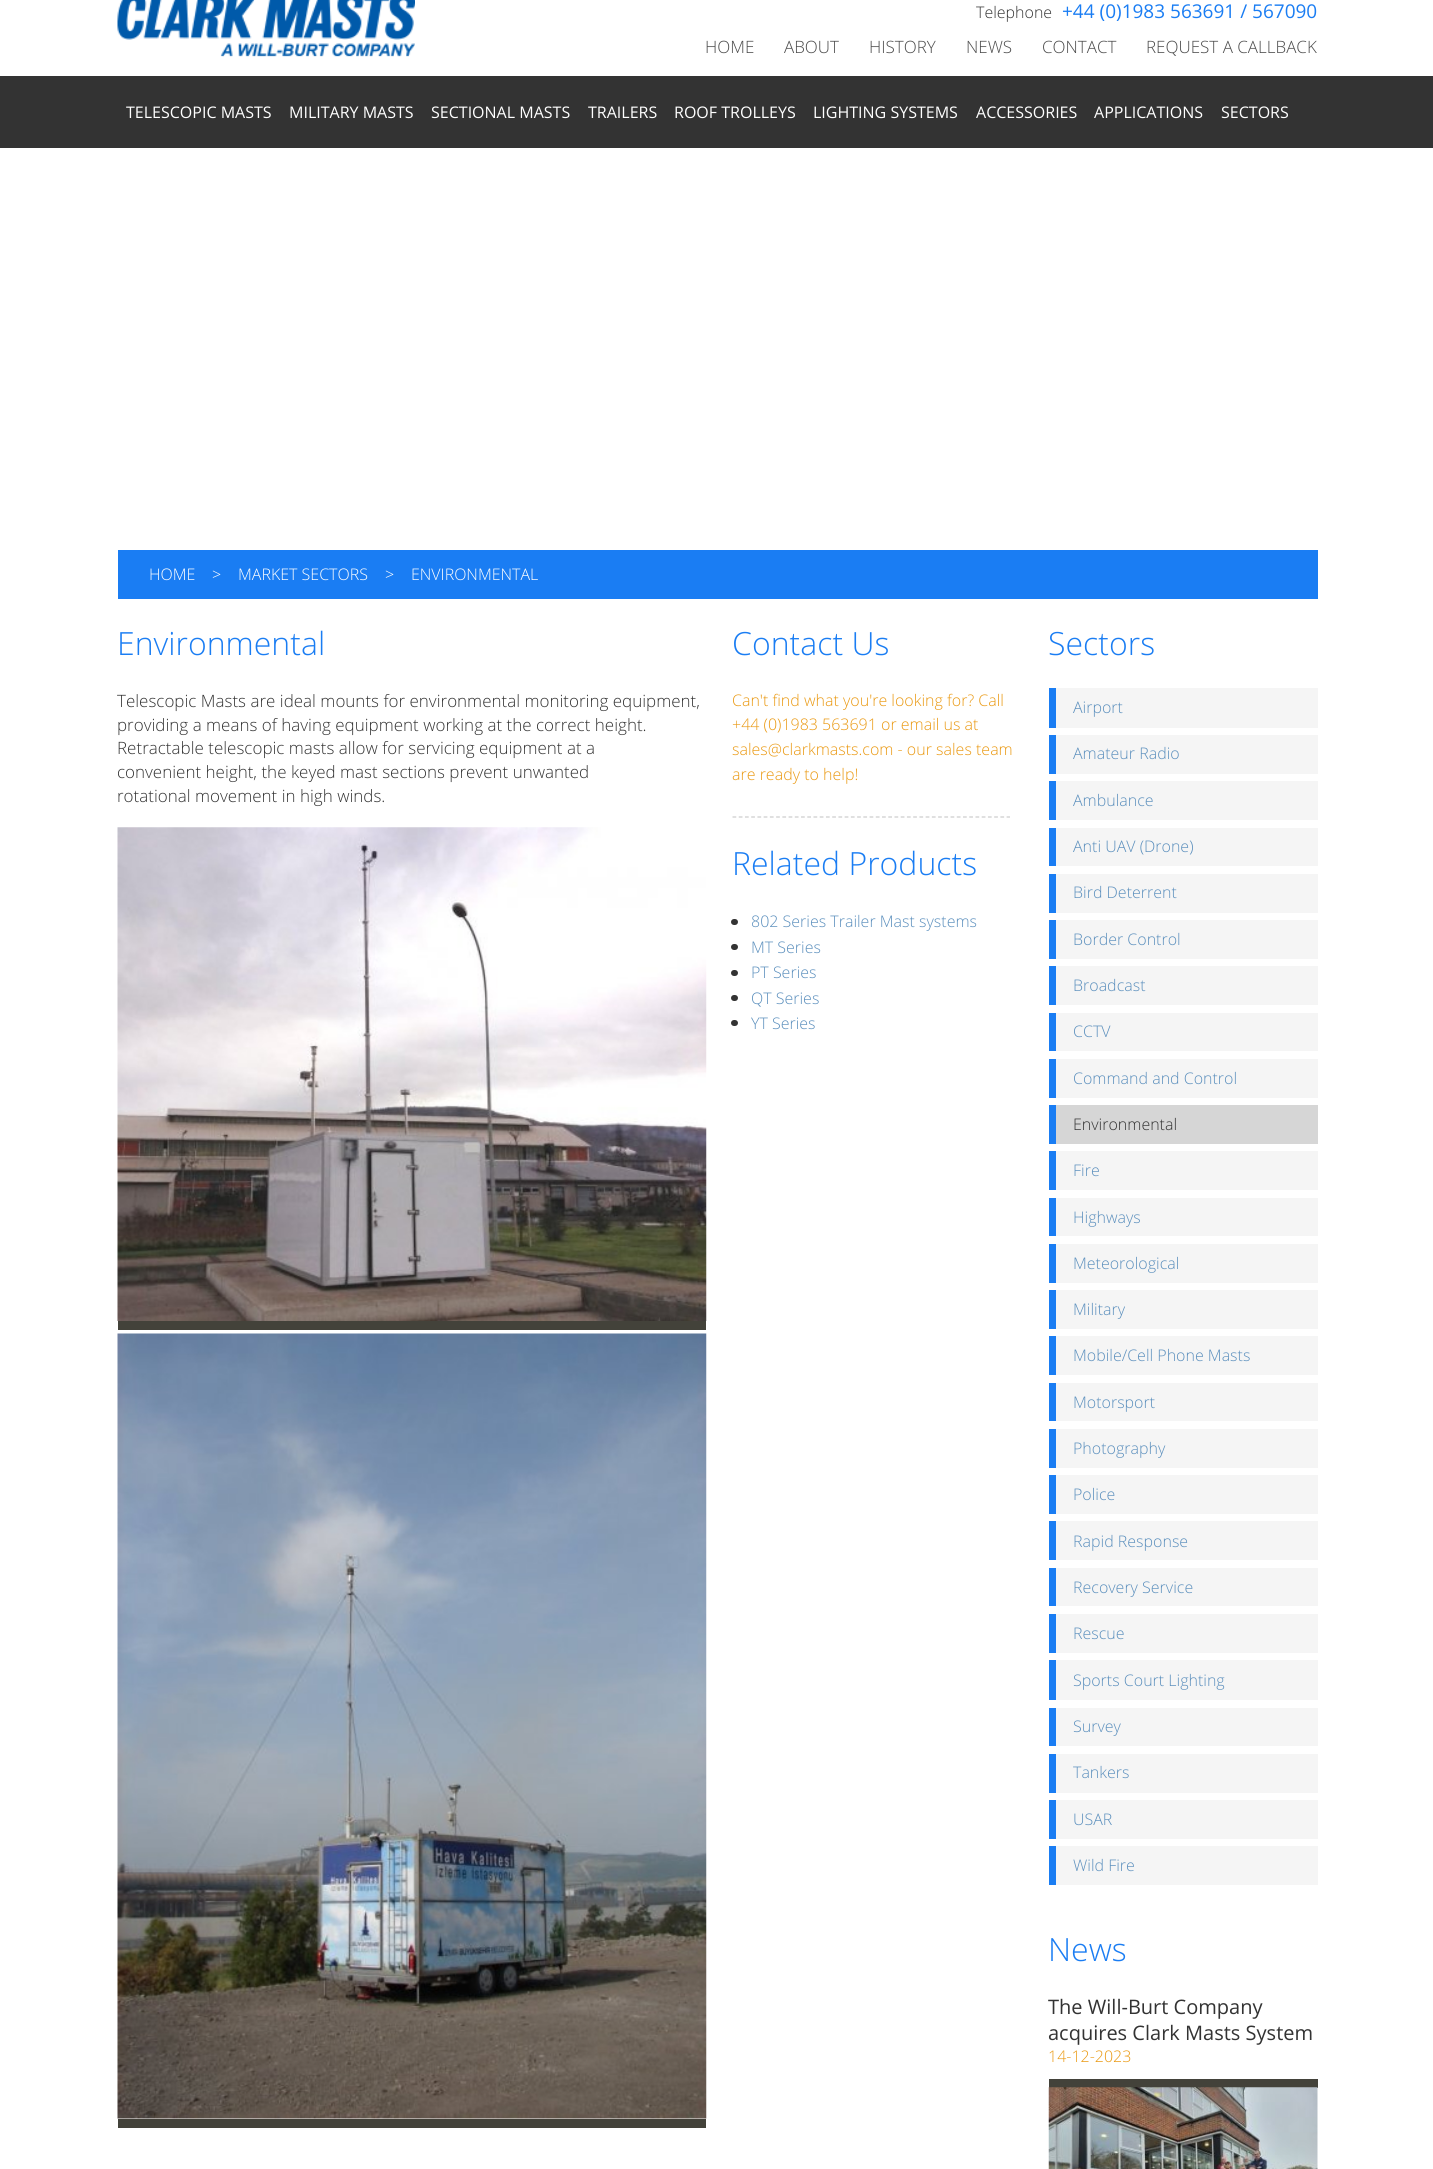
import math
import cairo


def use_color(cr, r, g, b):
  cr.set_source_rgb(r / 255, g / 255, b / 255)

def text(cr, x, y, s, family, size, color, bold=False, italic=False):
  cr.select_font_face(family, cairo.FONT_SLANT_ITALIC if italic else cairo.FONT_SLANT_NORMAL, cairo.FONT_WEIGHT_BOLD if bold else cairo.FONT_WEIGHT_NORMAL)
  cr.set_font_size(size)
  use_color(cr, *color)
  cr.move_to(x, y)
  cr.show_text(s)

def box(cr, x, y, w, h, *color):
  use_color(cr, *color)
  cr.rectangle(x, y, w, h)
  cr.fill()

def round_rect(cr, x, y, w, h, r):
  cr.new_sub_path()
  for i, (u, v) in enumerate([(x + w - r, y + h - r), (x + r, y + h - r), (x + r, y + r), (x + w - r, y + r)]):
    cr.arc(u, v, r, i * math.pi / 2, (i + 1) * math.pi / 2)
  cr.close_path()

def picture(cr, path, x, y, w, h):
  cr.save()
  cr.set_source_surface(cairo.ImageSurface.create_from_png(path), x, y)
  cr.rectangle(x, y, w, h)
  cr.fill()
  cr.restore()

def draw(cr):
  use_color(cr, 51, 51, 51)
  cr.paint()
  box(cr, 0, 0, 1433, 76, 255, 255, 255)
  picture(cr, "img_01.png", 117, 0, 298, 57)
  box(cr, 0, 148, 1433, 2021, 255, 255, 255)
  box(cr, 118, 550, 1200, 49, 26, 125, 243)
  picture(cr, "img_02.png", 117, 827, 590, 494)
  box(cr, 118, 1321, 588, 9, 67, 66, 58)
  picture(cr, "img_03.png", 117, 1333, 590, 786)
  box(cr, 118, 2119, 588, 9, 67, 66, 58)
  cr.new_path()
  cr.move_to(732.5, 817)
  cr.line_to(1010, 817)
  use_color(cr, 204, 204, 204)
  cr.set_line_width(1.2)
  cr.set_dash([3.75, 2.48])
  cr.stroke()
  use_color(cr, 51, 51, 51)
  round_rect(cr, 731, 919, 7, 6, 3)
  cr.fill()
  round_rect(cr, 731, 944, 7, 6, 3)
  cr.fill()
  round_rect(cr, 731, 970, 7, 6, 3)
  cr.fill()
  round_rect(cr, 731, 995, 7, 6, 3)
  cr.fill()
  round_rect(cr, 731, 1020, 7, 6, 3)
  cr.fill()
  box(cr, 1049, 688, 7, 40, 26, 125, 243)
  box(cr, 1056, 688, 262, 40, 245, 245, 245)
  box(cr, 1049, 735, 7, 39, 26, 125, 243)
  box(cr, 1056, 735, 262, 39, 245, 245, 245)
  box(cr, 1049, 781, 7, 39, 26, 125, 243)
  box(cr, 1056, 781, 262, 39, 245, 245, 245)
  box(cr, 1049, 828, 7, 38, 26, 125, 243)
  box(cr, 1056, 828, 262, 38, 245, 245, 245)
  box(cr, 1049, 874, 7, 39, 26, 125, 243)
  box(cr, 1056, 874, 262, 39, 245, 245, 245)
  box(cr, 1049, 920, 7, 39, 26, 125, 243)
  box(cr, 1056, 920, 262, 39, 245, 245, 245)
  box(cr, 1049, 966, 7, 39, 26, 125, 243)
  box(cr, 1056, 966, 262, 39, 245, 245, 245)
  box(cr, 1049, 1013, 7, 38, 26, 125, 243)
  box(cr, 1056, 1013, 262, 38, 245, 245, 245)
  box(cr, 1049, 1059, 7, 39, 26, 125, 243)
  box(cr, 1056, 1059, 262, 39, 245, 245, 245)
  box(cr, 1049, 1105, 7, 39, 26, 125, 243)
  box(cr, 1056, 1105, 262, 39, 214, 214, 214)
  box(cr, 1049, 1151, 7, 39, 26, 125, 243)
  box(cr, 1056, 1151, 262, 39, 245, 245, 245)
  box(cr, 1049, 1198, 7, 38, 26, 125, 243)
  box(cr, 1056, 1198, 262, 38, 245, 245, 245)
  box(cr, 1049, 1244, 7, 39, 26, 125, 243)
  box(cr, 1056, 1244, 262, 39, 245, 245, 245)
  box(cr, 1049, 1290, 7, 39, 26, 125, 243)
  box(cr, 1056, 1290, 262, 39, 245, 245, 245)
  box(cr, 1049, 1336, 7, 39, 26, 125, 243)
  box(cr, 1056, 1336, 262, 39, 245, 245, 245)
  box(cr, 1049, 1383, 7, 38, 26, 125, 243)
  box(cr, 1056, 1383, 262, 38, 245, 245, 245)
  box(cr, 1049, 1429, 7, 39, 26, 125, 243)
  box(cr, 1056, 1429, 262, 39, 245, 245, 245)
  box(cr, 1049, 1475, 7, 39, 26, 125, 243)
  box(cr, 1056, 1475, 262, 39, 245, 245, 245)
  box(cr, 1049, 1521, 7, 39, 26, 125, 243)
  box(cr, 1056, 1521, 262, 39, 245, 245, 245)
  box(cr, 1049, 1568, 7, 38, 26, 125, 243)
  box(cr, 1056, 1568, 262, 38, 245, 245, 245)
  box(cr, 1049, 1614, 7, 39, 26, 125, 243)
  box(cr, 1056, 1614, 262, 39, 245, 245, 245)
  box(cr, 1049, 1660, 7, 40, 26, 125, 243)
  box(cr, 1056, 1660, 262, 40, 245, 245, 245)
  box(cr, 1049, 1708, 7, 38, 26, 125, 243)
  box(cr, 1056, 1708, 262, 38, 245, 245, 245)
  box(cr, 1049, 1754, 7, 39, 26, 125, 243)
  box(cr, 1056, 1754, 262, 39, 245, 245, 245)
  box(cr, 1049, 1800, 7, 39, 26, 125, 243)
  box(cr, 1056, 1800, 262, 39, 245, 245, 245)
  box(cr, 1049, 1846, 7, 39, 26, 125, 243)
  box(cr, 1056, 1846, 262, 39, 245, 245, 245)
  box(cr, 1049, 2079, 269, 9, 67, 66, 58)
  picture(cr, "img_04.png", 1048, 2087, 270, 82)
  text(cr, 976, 18, "Telephone", "Open Sans Light", 16, (51, 51, 51))
  text(cr, 1062, 18, "+44 (0)1983 563691 / 567090", "Open Sans", 19, (26, 125, 243))
  text(cr, 705, 53, "HOME", "Open Sans Light", 17, (75, 75, 75))
  text(cr, 784, 53, "ABOUT", "Open Sans Light", 17, (75, 75, 75))
  text(cr, 869, 53, "HISTORY", "Open Sans Light", 17, (75, 75, 75))
  text(cr, 966, 53, "NEWS", "Open Sans Light", 17, (75, 75, 75))
  text(cr, 1042, 53, "CONTACT", "Open Sans Light", 17, (75, 75, 75))
  text(cr, 1146, 53, "REQUEST A CALLBACK", "Open Sans Light", 17, (75, 75, 75))
  text(cr, 126, 118, "TELESCOPIC MASTS", "Open Sans", 16, (255, 255, 255))
  text(cr, 289, 118, "MILITARY MASTS", "Open Sans", 16, (255, 255, 255))
  text(cr, 431, 118, "SECTIONAL MASTS", "Open Sans", 16, (255, 255, 255))
  text(cr, 588, 118, "TRAILERS", "Open Sans", 16, (255, 255, 255))
  text(cr, 674, 118, "ROOF TROLLEYS", "Open Sans", 16, (255, 255, 255))
  text(cr, 813, 118, "LIGHTING SYSTEMS", "Open Sans", 16, (255, 255, 255))
  text(cr, 976, 118, "ACCESSORIES", "Open Sans", 16, (255, 255, 255))
  text(cr, 1094, 118, "APPLICATIONS", "Open Sans", 16, (255, 255, 255))
  text(cr, 1221, 118, "SECTORS", "Open Sans", 16, (255, 255, 255))
  text(cr, 149, 580, "HOME", "Open Sans Light", 16, (255, 255, 255))
  text(cr, 212, 580, ">", "Open Sans Light", 16, (255, 255, 255))
  text(cr, 238, 580, "MARKET SECTORS", "Open Sans Light", 16, (255, 255, 255))
  text(cr, 385, 580, ">", "Open Sans Light", 16, (255, 255, 255))
  text(cr, 411, 580, "ENVIRONMENTAL", "Open Sans Light", 16, (255, 255, 255))
  text(cr, 117, 655, "Environmental", "Open Sans Light", 32, (26, 125, 243))
  text(cr, 117, 707, "Telescopic Masts are ideal mounts for environmental monitoring equipment,", "Open Sans Light", 17, (51, 51, 51))
  text(cr, 117, 731, "providing a means of having equipment working at the correct height.", "Open Sans Light", 17, (51, 51, 51))
  text(cr, 117, 754, "Retractable telescopic masts allow for servicing equipment at a", "Open Sans Light", 17, (51, 51, 51))
  text(cr, 117, 778, "convenient height, the keyed mast sections prevent unwanted", "Open Sans Light", 17, (51, 51, 51))
  text(cr, 117, 802, "rotational movement in high winds.", "Open Sans Light", 17, (51, 51, 51))
  text(cr, 732, 655, "Contact Us", "Open Sans Light", 32, (26, 125, 243))
  text(cr, 732, 706, "Can't find what you're looking for? Call", "Open Sans Light", 16, (234, 153, 18))
  text(cr, 732, 730, "+44 (0)1983 563691 or email us at", "Open Sans Light", 16, (234, 153, 18))
  text(cr, 732, 755, "sales@clarkmasts.com - our sales team", "Open Sans Light", 16, (234, 153, 18))
  text(cr, 732, 780, "are ready to help!", "Open Sans Light", 16, (234, 153, 18))
  text(cr, 732, 875, "Related Products", "Open Sans Light", 32, (26, 125, 243))
  text(cr, 751, 927, "802 Series Trailer Mast systems", "Open Sans Light", 16, (91, 143, 189))
  text(cr, 751, 953, "MT Series", "Open Sans Light", 16, (91, 143, 189))
  text(cr, 751, 978, "PT Series", "Open Sans Light", 16, (91, 143, 189))
  text(cr, 751, 1004, "QT Series", "Open Sans Light", 16, (91, 143, 189))
  text(cr, 751, 1029, "YT Series", "Open Sans Light", 16, (91, 143, 189))
  text(cr, 1048, 655, "Sectors", "Open Sans Light", 32, (26, 125, 243))
  text(cr, 1073, 713, "Airport", "Open Sans Light", 16, (91, 143, 189))
  text(cr, 1073, 759, "Amateur Radio", "Open Sans Light", 16, (91, 143, 189))
  text(cr, 1073, 806, "Ambulance", "Open Sans Light", 16, (91, 143, 189))
  text(cr, 1073, 852, "Anti UAV (Drone)", "Open Sans Light", 16, (91, 143, 189))
  text(cr, 1073, 898, "Bird Deterrent", "Open Sans Light", 16, (91, 143, 189))
  text(cr, 1073, 945, "Border Control", "Open Sans Light", 16, (91, 143, 189))
  text(cr, 1073, 991, "Broadcast", "Open Sans Light", 16, (91, 143, 189))
  text(cr, 1073, 1037, "CCTV", "Open Sans Light", 16, (91, 143, 189))
  text(cr, 1073, 1084, "Command and Control", "Open Sans Light", 16, (91, 143, 189))
  text(cr, 1073, 1130, "Environmental", "Open Sans Light", 16, (51, 51, 51))
  text(cr, 1073, 1176, "Fire", "Open Sans Light", 16, (91, 143, 189))
  text(cr, 1073, 1223, "Highways", "Open Sans Light", 16, (91, 143, 189))
  text(cr, 1073, 1269, "Meteorological", "Open Sans Light", 16, (91, 143, 189))
  text(cr, 1073, 1315, "Military", "Open Sans Light", 16, (91, 143, 189))
  text(cr, 1073, 1361, "Mobile/Cell Phone Masts", "Open Sans Light", 16, (91, 143, 189))
  text(cr, 1073, 1408, "Motorsport", "Open Sans Light", 16, (91, 143, 189))
  text(cr, 1073, 1454, "Photography", "Open Sans Light", 16, (91, 143, 189))
  text(cr, 1073, 1500, "Police", "Open Sans Light", 16, (91, 143, 189))
  text(cr, 1073, 1547, "Rapid Response", "Open Sans Light", 16, (91, 143, 189))
  text(cr, 1073, 1593, "Recovery Service", "Open Sans Light", 16, (91, 143, 189))
  text(cr, 1073, 1639, "Rescue", "Open Sans Light", 16, (91, 143, 189))
  text(cr, 1073, 1686, "Sports Court Lighting", "Open Sans Light", 16, (91, 143, 189))
  text(cr, 1073, 1732, "Survey", "Open Sans Light", 16, (91, 143, 189))
  text(cr, 1073, 1778, "Tankers", "Open Sans Light", 16, (91, 143, 189))
  text(cr, 1073, 1825, "USAR", "Open Sans Light", 16, (91, 143, 189))
  text(cr, 1073, 1871, "Wild Fire", "Open Sans Light", 16, (91, 143, 189))
  text(cr, 1048, 1961, "News", "Open Sans Light", 32, (26, 125, 243))
  text(cr, 1048, 2014, "The Will-Burt Company", "Open Sans", 20, (51, 51, 51))
  text(cr, 1048, 2040, "acquires Clark Masts System", "Open Sans", 20, (51, 51, 51))
  text(cr, 1048, 2062, "14-12-2023", "Open Sans Light", 16, (234, 153, 18))


surface = cairo.ImageSurface(cairo.FORMAT_RGB24, 1433, 2169)
cr = cairo.Context(surface)
options = cairo.FontOptions()
options.set_hint_metrics(cairo.HINT_METRICS_OFF)
options.set_hint_style(cairo.HINT_STYLE_NONE)
cr.set_font_options(options)
cr.set_miter_limit(4)
draw(cr)
surface.write_to_png("out.png")
